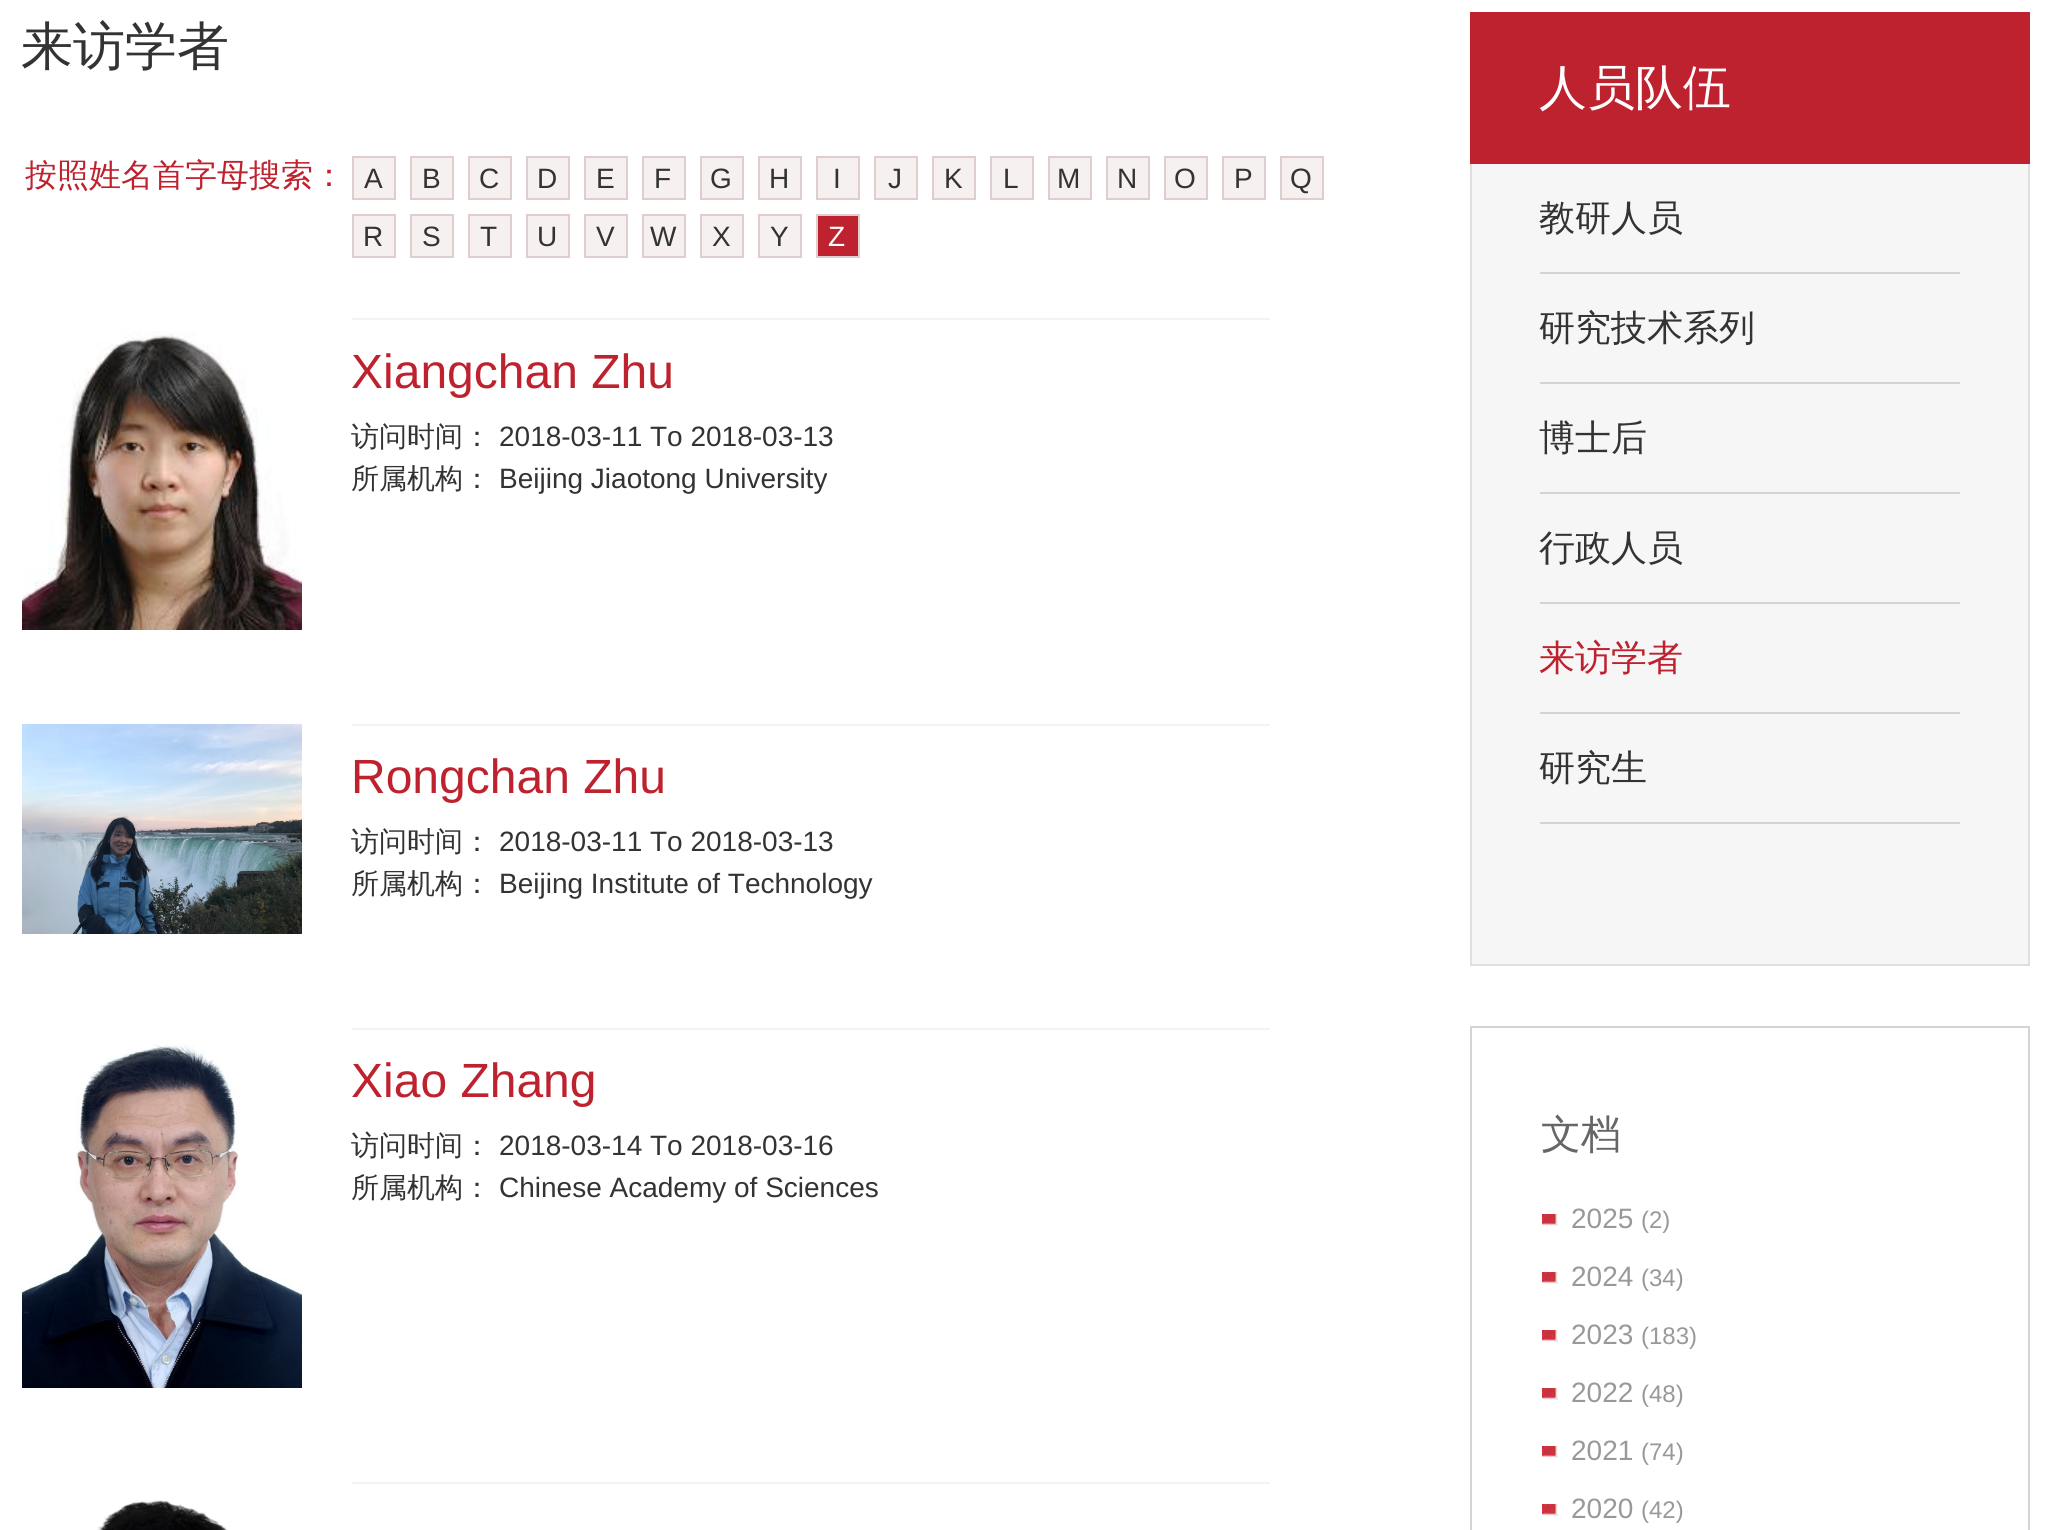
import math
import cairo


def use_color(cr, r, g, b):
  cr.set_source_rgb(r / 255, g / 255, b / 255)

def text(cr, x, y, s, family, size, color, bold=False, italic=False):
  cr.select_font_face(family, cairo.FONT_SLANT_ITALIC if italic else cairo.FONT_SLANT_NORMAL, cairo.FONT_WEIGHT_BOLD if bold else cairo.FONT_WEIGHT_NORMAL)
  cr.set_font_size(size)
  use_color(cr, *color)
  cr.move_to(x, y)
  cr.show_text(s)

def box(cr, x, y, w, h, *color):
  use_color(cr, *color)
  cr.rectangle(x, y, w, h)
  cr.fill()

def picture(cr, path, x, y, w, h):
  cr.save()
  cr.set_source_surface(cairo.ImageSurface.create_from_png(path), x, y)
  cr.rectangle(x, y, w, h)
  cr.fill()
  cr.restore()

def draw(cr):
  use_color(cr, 255, 255, 255)
  cr.paint()
  use_color(cr, 246, 240, 241)
  cr.rectangle(353, 157, 42, 42)
  cr.fill_preserve()
  use_color(cr, 224, 205, 206)
  cr.stroke()
  use_color(cr, 246, 240, 241)
  cr.rectangle(411, 157, 42, 42)
  cr.fill_preserve()
  use_color(cr, 224, 205, 206)
  cr.stroke()
  use_color(cr, 246, 240, 241)
  cr.rectangle(469, 157, 42, 42)
  cr.fill_preserve()
  use_color(cr, 224, 205, 206)
  cr.stroke()
  use_color(cr, 246, 240, 241)
  cr.rectangle(527, 157, 42, 42)
  cr.fill_preserve()
  use_color(cr, 224, 205, 206)
  cr.stroke()
  use_color(cr, 246, 240, 241)
  cr.rectangle(585, 157, 42, 42)
  cr.fill_preserve()
  use_color(cr, 224, 205, 206)
  cr.stroke()
  use_color(cr, 246, 240, 241)
  cr.rectangle(643, 157, 42, 42)
  cr.fill_preserve()
  use_color(cr, 224, 205, 206)
  cr.stroke()
  use_color(cr, 246, 240, 241)
  cr.rectangle(701, 157, 42, 42)
  cr.fill_preserve()
  use_color(cr, 224, 205, 206)
  cr.stroke()
  use_color(cr, 246, 240, 241)
  cr.rectangle(759, 157, 42, 42)
  cr.fill_preserve()
  use_color(cr, 224, 205, 206)
  cr.stroke()
  use_color(cr, 246, 240, 241)
  cr.rectangle(817, 157, 42, 42)
  cr.fill_preserve()
  use_color(cr, 224, 205, 206)
  cr.stroke()
  use_color(cr, 246, 240, 241)
  cr.rectangle(875, 157, 42, 42)
  cr.fill_preserve()
  use_color(cr, 224, 205, 206)
  cr.stroke()
  use_color(cr, 246, 240, 241)
  cr.rectangle(933, 157, 42, 42)
  cr.fill_preserve()
  use_color(cr, 224, 205, 206)
  cr.stroke()
  use_color(cr, 246, 240, 241)
  cr.rectangle(991, 157, 42, 42)
  cr.fill_preserve()
  use_color(cr, 224, 205, 206)
  cr.stroke()
  use_color(cr, 246, 240, 241)
  cr.rectangle(1049, 157, 42, 42)
  cr.fill_preserve()
  use_color(cr, 224, 205, 206)
  cr.stroke()
  use_color(cr, 246, 240, 241)
  cr.rectangle(1107, 157, 42, 42)
  cr.fill_preserve()
  use_color(cr, 224, 205, 206)
  cr.stroke()
  use_color(cr, 246, 240, 241)
  cr.rectangle(1165, 157, 42, 42)
  cr.fill_preserve()
  use_color(cr, 224, 205, 206)
  cr.stroke()
  use_color(cr, 246, 240, 241)
  cr.rectangle(1223, 157, 42, 42)
  cr.fill_preserve()
  use_color(cr, 224, 205, 206)
  cr.stroke()
  use_color(cr, 246, 240, 241)
  cr.rectangle(1281, 157, 42, 42)
  cr.fill_preserve()
  use_color(cr, 224, 205, 206)
  cr.stroke()
  use_color(cr, 246, 240, 241)
  cr.rectangle(353, 215, 42, 42)
  cr.fill_preserve()
  use_color(cr, 224, 205, 206)
  cr.stroke()
  use_color(cr, 246, 240, 241)
  cr.rectangle(411, 215, 42, 42)
  cr.fill_preserve()
  use_color(cr, 224, 205, 206)
  cr.stroke()
  use_color(cr, 246, 240, 241)
  cr.rectangle(469, 215, 42, 42)
  cr.fill_preserve()
  use_color(cr, 224, 205, 206)
  cr.stroke()
  use_color(cr, 246, 240, 241)
  cr.rectangle(527, 215, 42, 42)
  cr.fill_preserve()
  use_color(cr, 224, 205, 206)
  cr.stroke()
  use_color(cr, 246, 240, 241)
  cr.rectangle(585, 215, 42, 42)
  cr.fill_preserve()
  use_color(cr, 224, 205, 206)
  cr.stroke()
  use_color(cr, 246, 240, 241)
  cr.rectangle(643, 215, 42, 42)
  cr.fill_preserve()
  use_color(cr, 224, 205, 206)
  cr.stroke()
  use_color(cr, 246, 240, 241)
  cr.rectangle(701, 215, 42, 42)
  cr.fill_preserve()
  use_color(cr, 224, 205, 206)
  cr.stroke()
  use_color(cr, 246, 240, 241)
  cr.rectangle(759, 215, 42, 42)
  cr.fill_preserve()
  use_color(cr, 224, 205, 206)
  cr.stroke()
  use_color(cr, 190, 34, 46)
  cr.rectangle(817, 215, 42, 42)
  cr.fill_preserve()
  use_color(cr, 224, 205, 206)
  cr.stroke()
  picture(cr, "img_01.png", 22, 331, 280, 299)
  box(cr, 352, 318, 918, 2, 243, 243, 243)
  picture(cr, "img_02.png", 22, 724, 280, 210)
  box(cr, 352, 724, 918, 2, 243, 243, 243)
  picture(cr, "img_03.png", 22, 1044, 280, 344)
  box(cr, 352, 1028, 918, 2, 243, 243, 243)
  box(cr, 352, 1482, 918, 2, 243, 243, 243)
  picture(cr, "img_04.png", 97, 1500, 131, 30)
  box(cr, 1470, 12, 560, 152, 190, 34, 46)
  box(cr, 1472, 164, 556, 800, 246, 246, 246)
  box(cr, 2028, 164, 2, 802, 223, 223, 223)
  box(cr, 1470, 964, 560, 2, 223, 223, 223)
  box(cr, 1470, 164, 2, 802, 223, 223, 223)
  box(cr, 1540, 272, 420, 2, 212, 212, 212)
  box(cr, 1540, 382, 420, 2, 212, 212, 212)
  box(cr, 1540, 492, 420, 2, 212, 212, 212)
  box(cr, 1540, 602, 420, 2, 212, 212, 212)
  box(cr, 1540, 712, 420, 2, 212, 212, 212)
  box(cr, 1540, 822, 420, 2, 212, 212, 212)
  cr.rectangle(1471, 1027, 558, 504)
  cr.stroke()
  picture(cr, "img_05.png", 1542, 1214, 16, 12)
  picture(cr, "img_05.png", 1542, 1272, 16, 12)
  picture(cr, "img_05.png", 1542, 1330, 16, 12)
  picture(cr, "img_05.png", 1542, 1388, 16, 12)
  picture(cr, "img_05.png", 1542, 1446, 16, 12)
  picture(cr, "img_05.png", 1542, 1504, 16, 12)
  text(cr, 21, 64, "来访学者", "WenQuanYi Zen Hei Medium", 52, (51, 51, 51))
  text(cr, 25, 186, "按照姓名首字母搜索：", "WenQuanYi Zen Hei Medium", 32, (190, 34, 46))
  text(cr, 364, 188, "A", "Liberation Sans", 28, (51, 51, 51))
  text(cr, 422, 188, "B", "Liberation Sans", 28, (51, 51, 51))
  text(cr, 479, 188, "C", "Liberation Sans", 28, (51, 51, 51))
  text(cr, 537, 188, "D", "Liberation Sans", 28, (51, 51, 51))
  text(cr, 596, 188, "E", "Liberation Sans", 28, (51, 51, 51))
  text(cr, 654, 188, "F", "Liberation Sans", 28, (51, 51, 51))
  text(cr, 710, 188, "G", "Liberation Sans", 28, (51, 51, 51))
  text(cr, 769, 188, "H", "Liberation Sans", 28, (51, 51, 51))
  text(cr, 833, 188, "I", "Liberation Sans", 28, (51, 51, 51))
  text(cr, 888, 188, "J", "Liberation Sans", 28, (51, 51, 51))
  text(cr, 944, 188, "K", "Liberation Sans", 28, (51, 51, 51))
  text(cr, 1003, 188, "L", "Liberation Sans", 28, (51, 51, 51))
  text(cr, 1057, 188, "M", "Liberation Sans", 28, (51, 51, 51))
  text(cr, 1117, 188, "N", "Liberation Sans", 28, (51, 51, 51))
  text(cr, 1174, 188, "O", "Liberation Sans", 28, (51, 51, 51))
  text(cr, 1234, 188, "P", "Liberation Sans", 28, (51, 51, 51))
  text(cr, 1290, 188, "Q", "Liberation Sans", 28, (51, 51, 51))
  text(cr, 363, 246, "R", "Liberation Sans", 28, (51, 51, 51))
  text(cr, 422, 246, "S", "Liberation Sans", 28, (51, 51, 51))
  text(cr, 480, 246, "T", "Liberation Sans", 28, (51, 51, 51))
  text(cr, 537, 246, "U", "Liberation Sans", 28, (51, 51, 51))
  text(cr, 596, 246, "V", "Liberation Sans", 28, (51, 51, 51))
  text(cr, 650, 246, "W", "Liberation Sans", 28, (51, 51, 51))
  text(cr, 712, 246, "X", "Liberation Sans", 28, (51, 51, 51))
  text(cr, 770, 246, "Y", "Liberation Sans", 28, (51, 51, 51))
  text(cr, 828, 246, "Z", "Liberation Sans", 28, (255, 255, 255))
  text(cr, 351, 388, "Xiangchan Zhu", "Liberation Sans", 48, (190, 34, 46))
  text(cr, 351, 446, "访问时间：", "WenQuanYi Zen Hei Medium", 28, (51, 51, 51))
  text(cr, 499, 446, "2018-03-11 To 2018-03-13", "Liberation Sans", 28, (51, 51, 51))
  text(cr, 351, 488, "所属机构：", "WenQuanYi Zen Hei Medium", 28, (51, 51, 51))
  text(cr, 499, 488, "Beijing Jiaotong University", "Liberation Sans", 28, (51, 51, 51))
  text(cr, 351, 793, "Rongchan Zhu", "Liberation Sans", 48, (190, 34, 46))
  text(cr, 351, 851, "访问时间：", "WenQuanYi Zen Hei Medium", 28, (51, 51, 51))
  text(cr, 499, 851, "2018-03-11 To 2018-03-13", "Liberation Sans", 28, (51, 51, 51))
  text(cr, 351, 893, "所属机构：", "WenQuanYi Zen Hei Medium", 28, (51, 51, 51))
  text(cr, 499, 893, "Beijing Institute of Technology", "Liberation Sans", 28, (51, 51, 51))
  text(cr, 351, 1097, "Xiao Zhang", "Liberation Sans", 48, (190, 34, 46))
  text(cr, 351, 1155, "访问时间：", "WenQuanYi Zen Hei Medium", 28, (51, 51, 51))
  text(cr, 499, 1155, "2018-03-14 To 2018-03-16", "Liberation Sans", 28, (51, 51, 51))
  text(cr, 351, 1197, "所属机构：", "WenQuanYi Zen Hei Medium", 28, (51, 51, 51))
  text(cr, 499, 1197, "Chinese Academy of Sciences", "Liberation Sans", 28, (51, 51, 51))
  text(cr, 1539, 104, "人员队伍", "WenQuanYi Zen Hei Medium", 48, (255, 255, 255))
  text(cr, 1539, 230, "教研人员", "WenQuanYi Zen Hei Medium", 36, (51, 51, 51))
  text(cr, 1539, 340, "研究技术系列", "WenQuanYi Zen Hei Medium", 36, (51, 51, 51))
  text(cr, 1539, 450, "博士后", "WenQuanYi Zen Hei Medium", 36, (51, 51, 51))
  text(cr, 1539, 560, "行政人员", "WenQuanYi Zen Hei Medium", 36, (51, 51, 51))
  text(cr, 1539, 670, "来访学者", "WenQuanYi Zen Hei Medium", 36, (190, 34, 46))
  text(cr, 1539, 780, "研究生", "WenQuanYi Zen Hei Medium", 36, (51, 51, 51))
  text(cr, 1541, 1148, "文档", "WenQuanYi Zen Hei Medium", 40, (102, 102, 102))
  text(cr, 1571, 1228, "2025", "Liberation Sans", 28, (153, 153, 153))
  text(cr, 1641, 1228, "(2)", "Liberation Sans", 24, (153, 153, 153))
  text(cr, 1571, 1286, "2024", "Liberation Sans", 28, (153, 153, 153))
  text(cr, 1641, 1286, "(34)", "Liberation Sans", 24, (153, 153, 153))
  text(cr, 1571, 1344, "2023", "Liberation Sans", 28, (153, 153, 153))
  text(cr, 1641, 1344, "(183)", "Liberation Sans", 24, (153, 153, 153))
  text(cr, 1571, 1402, "2022", "Liberation Sans", 28, (153, 153, 153))
  text(cr, 1641, 1402, "(48)", "Liberation Sans", 24, (153, 153, 153))
  text(cr, 1571, 1460, "2021", "Liberation Sans", 28, (153, 153, 153))
  text(cr, 1641, 1460, "(74)", "Liberation Sans", 24, (153, 153, 153))
  text(cr, 1571, 1518, "2020", "Liberation Sans", 28, (153, 153, 153))
  text(cr, 1641, 1518, "(42)", "Liberation Sans", 24, (153, 153, 153))


surface = cairo.ImageSurface(cairo.FORMAT_RGB24, 2049, 1530)
cr = cairo.Context(surface)
options = cairo.FontOptions()
options.set_hint_metrics(cairo.HINT_METRICS_OFF)
options.set_hint_style(cairo.HINT_STYLE_NONE)
cr.set_font_options(options)
cr.set_miter_limit(4)
draw(cr)
surface.write_to_png("out.png")
